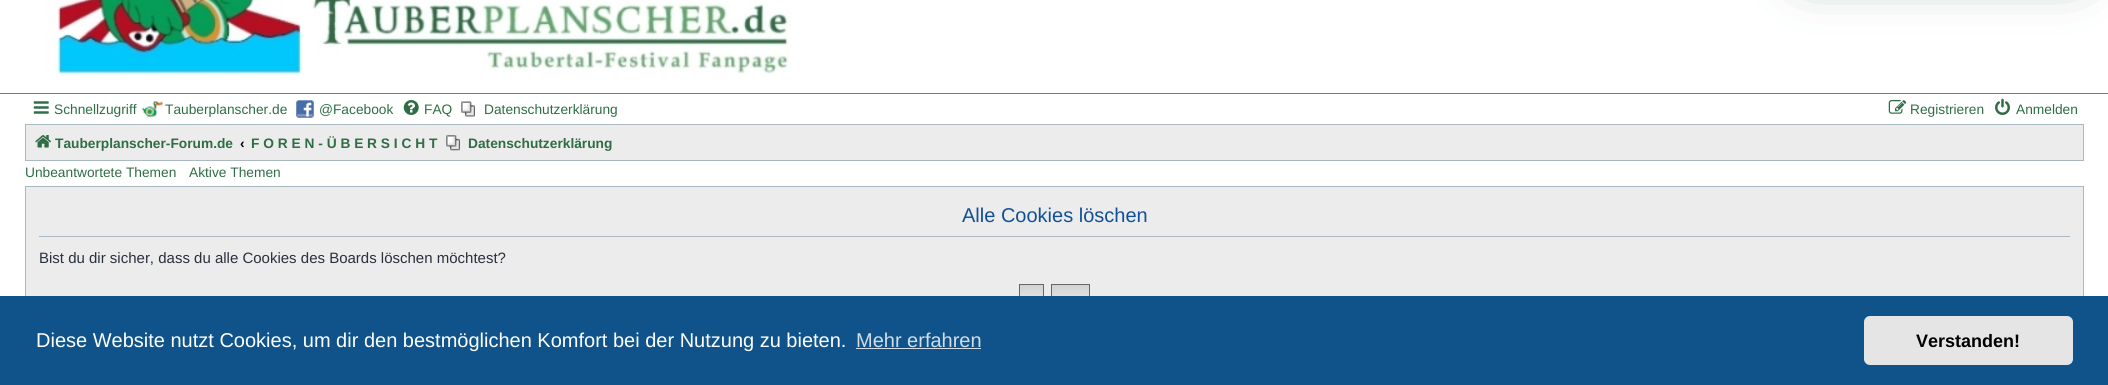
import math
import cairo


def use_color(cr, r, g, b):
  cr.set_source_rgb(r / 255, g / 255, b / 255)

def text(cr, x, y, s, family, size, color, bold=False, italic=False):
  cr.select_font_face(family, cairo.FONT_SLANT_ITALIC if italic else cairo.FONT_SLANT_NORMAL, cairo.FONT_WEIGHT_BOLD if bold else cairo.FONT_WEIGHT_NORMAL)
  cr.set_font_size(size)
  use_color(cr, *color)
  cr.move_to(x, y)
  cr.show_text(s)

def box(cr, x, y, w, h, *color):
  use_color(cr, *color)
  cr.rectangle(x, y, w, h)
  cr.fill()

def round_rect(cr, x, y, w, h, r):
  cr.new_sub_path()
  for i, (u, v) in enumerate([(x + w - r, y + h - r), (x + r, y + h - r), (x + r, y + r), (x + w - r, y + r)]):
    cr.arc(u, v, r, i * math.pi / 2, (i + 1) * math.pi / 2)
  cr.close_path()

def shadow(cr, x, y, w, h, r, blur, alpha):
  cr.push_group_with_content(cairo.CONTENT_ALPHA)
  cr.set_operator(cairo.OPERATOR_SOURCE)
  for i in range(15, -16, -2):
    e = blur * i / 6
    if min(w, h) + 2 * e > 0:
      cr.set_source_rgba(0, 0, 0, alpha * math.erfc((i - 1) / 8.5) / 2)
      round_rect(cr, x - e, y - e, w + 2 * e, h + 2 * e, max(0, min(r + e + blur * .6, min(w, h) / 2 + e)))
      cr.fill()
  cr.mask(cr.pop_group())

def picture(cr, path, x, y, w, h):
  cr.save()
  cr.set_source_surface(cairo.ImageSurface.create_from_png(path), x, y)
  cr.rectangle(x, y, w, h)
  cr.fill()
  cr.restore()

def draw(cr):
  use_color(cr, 255, 255, 255)
  cr.paint()
  box(cr, 0, 93, 2108, 1, 71, 135, 167)
  picture(cr, "img_01.png", 44, 0, 747, 83)
  use_color(cr, 47, 109, 68)
  shadow(cr, 1811, -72, 260, 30, 5, 31, 1)
  picture(cr, "img_02.png", 33, 101, 16, 13)
  picture(cr, "img_03.png", 142, 101, 21, 16)
  picture(cr, "img_04.png", 296, 100, 18, 18)
  picture(cr, "img_05.png", 403, 100, 16, 15)
  picture(cr, "img_06.png", 461, 101, 14, 16)
  picture(cr, "img_07.png", 1888, 100, 19, 14)
  picture(cr, "img_08.png", 1995, 98, 15, 17)
  use_color(cr, 236, 236, 236)
  cr.rectangle(25.5, 124.5, 2058, 36)
  cr.fill_preserve()
  use_color(cr, 169, 184, 194)
  cr.set_line_width(1)
  cr.stroke()
  picture(cr, "img_09.png", 35, 135, 16, 13)
  picture(cr, "img_10.png", 446, 135, 14, 16)
  box(cr, 26, 187, 2057, 109, 236, 236, 236)
  cr.rectangle(25.5, 186.5, 2058, 137)
  use_color(cr, 169, 184, 194)
  cr.stroke()
  box(cr, 39, 236, 2031, 1, 169, 184, 194)
  gradient = cairo.LinearGradient(1031, 285, 1031, 309)
  gradient.add_color_stop_rgba(0, 0.824, 0.824, 0.824, 1)
  gradient.add_color_stop_rgba(1, 0.937, 0.937, 0.937, 1)
  cr.set_source(gradient)
  cr.rectangle(1020, 285, 23, 11)
  cr.fill()
  cr.rectangle(1019.5, 284.5, 24, 25)
  use_color(cr, 102, 102, 102)
  cr.stroke()
  gradient = cairo.LinearGradient(1071, 285, 1071, 309)
  gradient.add_color_stop_rgba(0, 0.824, 0.824, 0.824, 1)
  gradient.add_color_stop_rgba(1, 0.937, 0.937, 0.937, 1)
  cr.set_source(gradient)
  cr.rectangle(1052, 285, 37, 11)
  cr.fill()
  cr.rectangle(1051.5, 284.5, 38, 25)
  use_color(cr, 102, 102, 102)
  cr.stroke()
  box(cr, 0, 296, 2108, 89, 15, 83, 138)
  box(cr, 856, 348, 125, 1, 207, 221, 232)
  use_color(cr, 229, 229, 229)
  round_rect(cr, 1864, 316, 209, 49, 6)
  cr.fill()
  text(cr, 54, 114, "Schnellzugriff", "Liberation Sans", 13.75, (47, 109, 68))
  text(cr, 165, 114, "Tauberplanscher.de", "Liberation Sans", 13.75, (47, 109, 68))
  text(cr, 319, 114, "@Facebook", "Liberation Sans", 13.75, (47, 109, 68))
  text(cr, 424, 114, "FAQ", "Liberation Sans", 13.75, (47, 109, 68))
  text(cr, 484, 114, "Datenschutzerklärung", "Liberation Sans", 13.75, (47, 109, 68))
  text(cr, 1910, 114, "Registrieren", "Liberation Sans", 13.75, (47, 109, 68))
  text(cr, 2016, 114, "Anmelden", "Liberation Sans", 13.75, (47, 109, 68))
  text(cr, 55, 148, "Tauberplanscher-Forum.de", "Liberation Sans", 13.75, (47, 109, 68), bold=True)
  text(cr, 240, 148, "‹", "Liberation Sans", 13.75, (0, 0, 0), bold=True)
  text(cr, 251, 148, "F O R E N - Ü B E R S I C H T", "Liberation Sans", 13.75, (47, 109, 68), bold=True)
  text(cr, 468, 148, "Datenschutzerklärung", "Liberation Sans", 13.75, (47, 109, 68), bold=True)
  text(cr, 25, 177, "Unbeantwortete Themen", "Liberation Sans", 13.75, (47, 109, 68))
  text(cr, 189, 177, "Aktive Themen", "Liberation Sans", 13.75, (47, 109, 68))
  text(cr, 962, 222, "Alle Cookies löschen", "Liberation Sans", 20, (17, 80, 152))
  text(cr, 39, 263, "Bist du dir sicher, dass du alle Cookies des Boards löschen möchtest?", "Liberation Sans", 15, (40, 49, 63))
  text(cr, 36, 347, "Diese Website nutzt Cookies, um dir den bestmöglichen Komfort bei der Nutzung zu bieten.", "Liberation Sans", 20, (255, 255, 255))
  text(cr, 856, 347, "Mehr erfahren", "Liberation Sans", 20, (207, 221, 232))
  text(cr, 1916, 347, "Verstanden!", "Liberation Sans", 18, (0, 0, 0), bold=True)


surface = cairo.ImageSurface(cairo.FORMAT_RGB24, 2108, 385)
cr = cairo.Context(surface)
options = cairo.FontOptions()
options.set_hint_metrics(cairo.HINT_METRICS_OFF)
options.set_hint_style(cairo.HINT_STYLE_NONE)
cr.set_font_options(options)
cr.set_miter_limit(4)
draw(cr)
surface.write_to_png("out.png")
